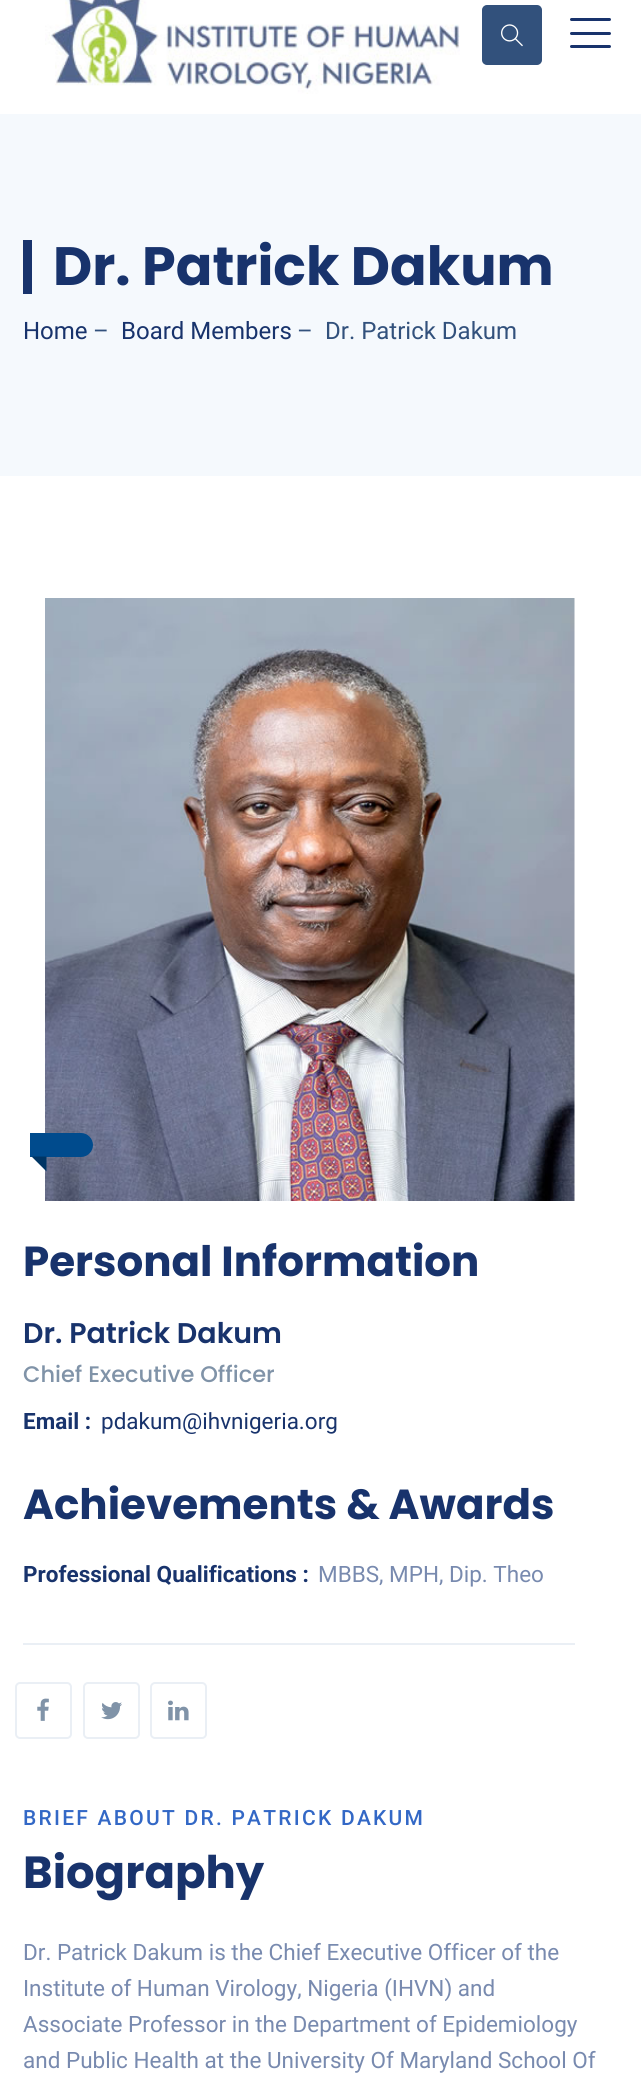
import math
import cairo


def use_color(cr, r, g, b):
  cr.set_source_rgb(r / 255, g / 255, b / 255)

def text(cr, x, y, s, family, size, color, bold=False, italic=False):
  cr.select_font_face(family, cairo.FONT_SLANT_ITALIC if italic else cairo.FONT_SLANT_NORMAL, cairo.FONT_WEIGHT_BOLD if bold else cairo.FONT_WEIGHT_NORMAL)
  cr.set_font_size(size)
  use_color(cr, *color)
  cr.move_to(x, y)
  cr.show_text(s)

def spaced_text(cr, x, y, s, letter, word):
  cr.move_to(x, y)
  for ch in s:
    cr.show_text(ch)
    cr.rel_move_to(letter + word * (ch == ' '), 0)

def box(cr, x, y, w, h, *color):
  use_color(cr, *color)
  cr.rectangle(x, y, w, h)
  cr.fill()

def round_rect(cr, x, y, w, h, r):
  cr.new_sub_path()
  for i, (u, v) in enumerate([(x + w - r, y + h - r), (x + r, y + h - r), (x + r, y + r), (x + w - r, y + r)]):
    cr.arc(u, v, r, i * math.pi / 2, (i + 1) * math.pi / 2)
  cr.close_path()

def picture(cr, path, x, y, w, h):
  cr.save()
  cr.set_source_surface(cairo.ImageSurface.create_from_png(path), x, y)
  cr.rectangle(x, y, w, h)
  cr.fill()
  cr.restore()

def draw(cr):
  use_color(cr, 255, 255, 255)
  cr.paint()
  picture(cr, "img_01.png", 45, 0, 415, 94)
  use_color(cr, 50, 81, 124)
  round_rect(cr, 483, 6, 58, 58, 4)
  cr.fill_preserve()
  cr.stroke()
  picture(cr, "img_02.png", 501, 24, 22, 23)
  use_color(cr, 24, 51, 108)
  round_rect(cr, 570, 32, 41, 3, 1.5)
  cr.fill()
  round_rect(cr, 570, 18, 41, 3, 1.5)
  cr.fill()
  round_rect(cr, 570, 45, 41, 3, 1.5)
  cr.fill()
  box(cr, 0, 114, 641, 362, 245, 249, 253)
  box(cr, 23, 240, 9, 54, 24, 51, 108)
  picture(cr, "img_03.png", 45, 598, 530, 603)
  use_color(cr, 0, 75, 141)
  cr.new_path()
  cr.move_to(30, 1133)
  cr.line_to(81, 1133)
  cr.curve_to(87.5, 1133, 93, 1138.5, 93, 1145)
  cr.curve_to(93, 1151.5, 87.5, 1157, 81, 1157)
  cr.line_to(30, 1157)
  cr.close_path()
  cr.fill()
  use_color(cr, 0, 53, 100)
  cr.new_path()
  cr.move_to(31.5, 1156.5)
  cr.line_to(46.5, 1156.5)
  cr.line_to(46.5, 1171.5)
  cr.close_path()
  cr.fill()
  box(cr, 23, 1643, 552, 2, 234, 239, 245)
  round_rect(cr, 16, 1683, 55, 55, 4)
  cr.stroke()
  picture(cr, "img_04.png", 37, 1698, 12, 23)
  round_rect(cr, 84, 1683, 55, 55, 4)
  cr.stroke()
  picture(cr, "img_05.png", 101, 1702, 21, 18)
  round_rect(cr, 151, 1683, 55, 55, 4)
  cr.stroke()
  picture(cr, "img_06.png", 168, 1700, 21, 21)
  text(cr, 53, 285, "Dr. Patrick Dakum", "Poppins", 54, (24, 51, 108), bold=True)
  text(cr, 23, 339, "Home", "Roboto", 24, (24, 51, 108))
  text(cr, 93, 339, "–", "Roboto", 24, (50, 81, 124))
  text(cr, 121, 339, "Board Members", "Roboto", 24, (24, 51, 108))
  text(cr, 297, 339, "–", "Roboto", 24, (50, 81, 124))
  text(cr, 325, 339, "Dr. Patrick Dakum", "Roboto", 24, (50, 81, 124))
  text(cr, 23, 1276, "Personal Information", "Poppins", 42, (24, 51, 108), bold=True)
  text(cr, 23, 1343, "Dr. Patrick Dakum", "Poppins SemiBold", 28.5, (24, 51, 108))
  text(cr, 23, 1382, "Chief Executive Officer", "Poppins Medium", 22.5, (128, 147, 168))
  text(cr, 23, 1429, "Email :", "Roboto", 22.5, (24, 51, 108), bold=True)
  text(cr, 101, 1429, "pdakum@ihvnigeria.org", "Roboto", 22.5, (24, 51, 108))
  text(cr, 23, 1519, "Achievements & Awards", "Poppins", 42, (24, 51, 108), bold=True)
  text(cr, 23, 1582, "Professional Qualifications :", "Roboto", 22.5, (24, 51, 108), bold=True)
  text(cr, 318, 1582, "MBBS, MPH, Dip. Theo", "Roboto", 22.5, (120, 138, 175))
  cr.select_font_face("Roboto Medium")
  cr.set_font_size(21)
  use_color(cr, 51, 104, 198)
  spaced_text(cr, 23, 1825, "BRIEF ABOUT DR. PATRICK DAKUM", 2.25, 0)
  text(cr, 23, 1888, "Biography", "Poppins", 45, (24, 51, 108), bold=True)
  text(cr, 23, 1960, "Dr. Patrick Dakum is the Chief Executive Officer of the", "Roboto", 22.5, (120, 138, 175))
  text(cr, 23, 1996, "Institute of Human Virology, Nigeria (IHVN) and", "Roboto", 22.5, (120, 138, 175))
  text(cr, 23, 2032, "Associate Professor in the Department of Epidemiology", "Roboto", 22.5, (120, 138, 175))
  text(cr, 23, 2068, "and Public Health at the University Of Maryland School Of", "Roboto", 22.5, (120, 138, 175))


surface = cairo.ImageSurface(cairo.FORMAT_RGB24, 641, 2088)
cr = cairo.Context(surface)
options = cairo.FontOptions()
options.set_hint_metrics(cairo.HINT_METRICS_OFF)
options.set_hint_style(cairo.HINT_STYLE_NONE)
cr.set_font_options(options)
cr.set_miter_limit(4)
draw(cr)
surface.write_to_png("out.png")
